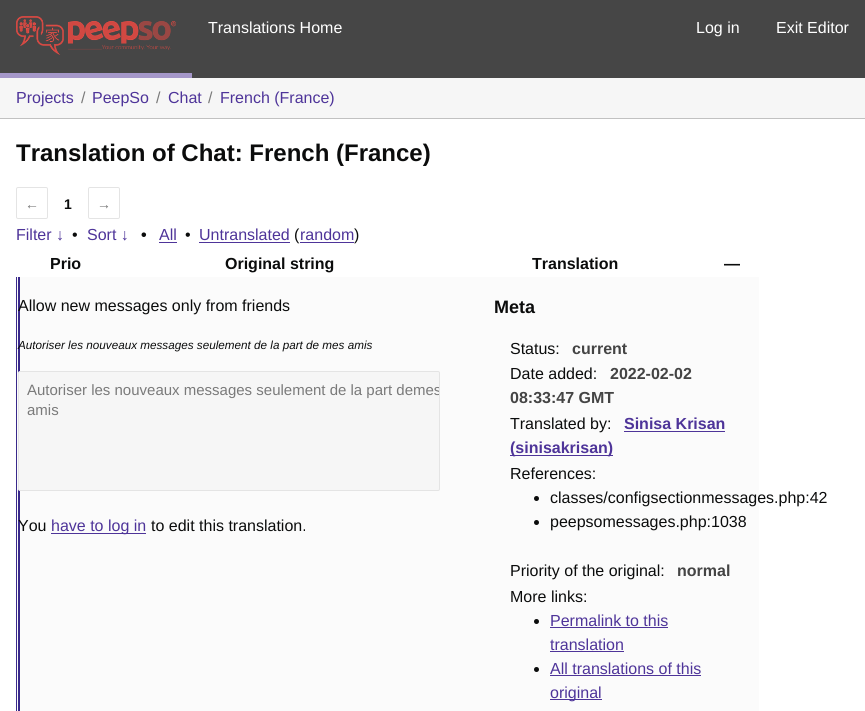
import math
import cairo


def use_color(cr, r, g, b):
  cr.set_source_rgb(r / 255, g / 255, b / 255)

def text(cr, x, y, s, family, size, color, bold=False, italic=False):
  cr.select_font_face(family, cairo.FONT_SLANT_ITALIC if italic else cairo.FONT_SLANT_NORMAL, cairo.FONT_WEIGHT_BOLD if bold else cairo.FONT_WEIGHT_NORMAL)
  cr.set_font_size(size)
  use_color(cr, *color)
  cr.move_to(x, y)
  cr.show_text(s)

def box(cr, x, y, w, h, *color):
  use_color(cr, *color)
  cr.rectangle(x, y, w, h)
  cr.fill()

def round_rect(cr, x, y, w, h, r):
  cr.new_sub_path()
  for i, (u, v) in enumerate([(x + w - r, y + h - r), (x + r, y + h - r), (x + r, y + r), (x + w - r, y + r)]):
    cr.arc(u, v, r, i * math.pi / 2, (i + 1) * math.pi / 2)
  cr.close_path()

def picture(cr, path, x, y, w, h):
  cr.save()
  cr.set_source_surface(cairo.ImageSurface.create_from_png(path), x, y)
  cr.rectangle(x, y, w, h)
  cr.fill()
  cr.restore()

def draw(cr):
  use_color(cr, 255, 255, 255)
  cr.paint()
  box(cr, 0, 0, 865, 78, 70, 70, 70)
  box(cr, 0, 73, 192, 5, 165, 151, 201)
  picture(cr, "img_01.png", 16, 16, 160, 39)
  box(cr, 0, 78, 865, 40, 246, 246, 246)
  box(cr, 0, 118, 865, 1, 193, 193, 193)
  round_rect(cr, 16.5, 187.5, 31, 31, 1.5)
  use_color(cr, 228, 228, 228)
  cr.set_line_width(1)
  cr.stroke()
  round_rect(cr, 88.5, 187.5, 31, 31, 1.5)
  cr.stroke()
  box(cr, 159, 242, 18, 1, 78, 52, 153)
  box(cr, 199, 242, 91, 1, 78, 52, 153)
  box(cr, 300, 242, 54, 1, 78, 52, 153)
  box(cr, 17, 277, 742, 434, 251, 251, 251)
  box(cr, 18, 277, 2, 434, 57, 41, 139)
  box(cr, 16, 277, 1, 434, 57, 41, 139)
  use_color(cr, 246, 246, 246)
  round_rect(cr, 18.5, 371.5, 421, 119, 1.5)
  cr.fill_preserve()
  use_color(cr, 228, 228, 228)
  cr.stroke()
  box(cr, 51, 533, 95, 1, 78, 52, 153)
  box(cr, 624, 431, 101, 1, 78, 52, 153)
  box(cr, 510, 455, 103, 1, 78, 52, 153)
  use_color(cr, 11, 12, 12)
  cr.arc(536.5, 498.5, 2.5, 0, 2 * math.pi)
  cr.fill()
  cr.arc(536.5, 522.5, 2.5, 0, 2 * math.pi)
  cr.fill()
  cr.arc(536.5, 621.5, 2.5, 0, 2 * math.pi)
  cr.fill()
  box(cr, 550, 627, 118, 1, 78, 52, 153)
  box(cr, 550, 651, 74, 1, 78, 52, 153)
  use_color(cr, 11, 12, 12)
  cr.arc(536.5, 669.5, 2.5, 0, 2 * math.pi)
  cr.fill()
  box(cr, 550, 675, 151, 1, 78, 52, 153)
  box(cr, 550, 699, 52, 1, 78, 52, 153)
  text(cr, 208, 33, "Translations Home", "Liberation Sans", 16, (255, 255, 255))
  text(cr, 696, 33, "Log in", "Liberation Sans", 16, (255, 255, 255))
  text(cr, 776, 33, "Exit Editor", "Liberation Sans", 16, (255, 255, 255))
  text(cr, 16, 103, "Projects", "Liberation Sans", 16, (78, 52, 153))
  text(cr, 81, 103, "/", "Liberation Sans", 16, (122, 122, 122))
  text(cr, 92, 103, "PeepSo", "Liberation Sans", 16, (78, 52, 153))
  text(cr, 156, 103, "/", "Liberation Sans", 16, (122, 122, 122))
  text(cr, 168, 103, "Chat", "Liberation Sans", 16, (78, 52, 153))
  text(cr, 208, 103, "/", "Liberation Sans", 16, (122, 122, 122))
  text(cr, 220, 103, "French (France)", "Liberation Sans", 16, (78, 52, 153))
  text(cr, 16, 161, "Translation of Chat: French (France)", "Liberation Sans", 24, (11, 12, 12), bold=True)
  text(cr, 25, 209, "←", "Liberation Sans", 14, (122, 122, 122))
  text(cr, 64, 209, "1", "Liberation Sans", 14, (11, 12, 12), bold=True)
  text(cr, 97, 209, "→", "Liberation Sans", 14, (122, 122, 122))
  text(cr, 16, 240, "Filter ↓", "Liberation Sans", 16, (78, 52, 153))
  text(cr, 72, 240, "•", "Liberation Sans", 16, (11, 12, 12))
  text(cr, 87, 240, "Sort ↓", "Liberation Sans", 16, (78, 52, 153))
  text(cr, 141, 240, "•", "Liberation Sans", 16, (11, 12, 12), bold=True)
  text(cr, 159, 240, "All", "Liberation Sans", 16, (78, 52, 153))
  text(cr, 185, 240, "•", "Liberation Sans", 16, (11, 12, 12))
  text(cr, 199, 240, "Untranslated", "Liberation Sans", 16, (78, 52, 153))
  text(cr, 294, 240, "(", "Liberation Sans", 16, (11, 12, 12))
  text(cr, 300, 240, "random", "Liberation Sans", 16, (78, 52, 153))
  text(cr, 354, 240, ")", "Liberation Sans", 16, (11, 12, 12))
  text(cr, 50, 269, "Prio", "Liberation Sans", 16, (11, 12, 12), bold=True)
  text(cr, 225, 269, "Original string", "Liberation Sans", 16, (11, 12, 12), bold=True)
  text(cr, 532, 269, "Translation", "Liberation Sans", 16, (11, 12, 12), bold=True)
  text(cr, 724, 269, "—", "Liberation Sans", 16, (11, 12, 12), bold=True)
  text(cr, 18, 311, "Allow new messages only from friends", "Liberation Sans", 16, (11, 12, 12))
  text(cr, 18, 349, "Autoriser les nouveaux messages seulement de la part de mes amis", "Liberation Sans", 11.7, (11, 12, 12), italic=True)
  text(cr, 27, 395, "Autoriser les nouveaux messages seulement de la part de", "Liberation Sans", 15, (122, 122, 122))
  cr.save()
  round_rect(cr, 19, 372, 420, 118, 1)
  cr.clip()
  text(cr, 413, 395, "mes", "Liberation Sans", 15, (122, 122, 122))
  cr.restore()
  text(cr, 27, 415, "amis", "Liberation Sans", 15, (122, 122, 122))
  text(cr, 18, 531, "You", "Liberation Sans", 16, (11, 12, 12))
  text(cr, 51, 531, "have to log in", "Liberation Sans", 16, (78, 52, 153))
  text(cr, 151, 531, "to edit this translation.", "Liberation Sans", 16, (11, 12, 12))
  text(cr, 494, 313, "Meta", "Liberation Sans", 18, (11, 12, 12), bold=True)
  text(cr, 510, 354, "Status:", "Liberation Sans", 16, (11, 12, 12))
  text(cr, 572, 354, "current", "Liberation Sans", 16, (68, 68, 68), bold=True)
  text(cr, 510, 379, "Date added:", "Liberation Sans", 16, (11, 12, 12))
  text(cr, 610, 379, "2022-02-02", "Liberation Sans", 16, (68, 68, 68), bold=True)
  text(cr, 510, 403, "08:33:47 GMT", "Liberation Sans", 16, (68, 68, 68), bold=True)
  text(cr, 510, 429, "Translated by:", "Liberation Sans", 16, (11, 12, 12))
  text(cr, 624, 429, "Sinisa Krisan", "Liberation Sans", 16, (78, 52, 153), bold=True)
  text(cr, 510, 453, "(sinisakrisan)", "Liberation Sans", 16, (78, 52, 153), bold=True)
  text(cr, 510, 479, "References:", "Liberation Sans", 16, (11, 12, 12))
  text(cr, 550, 503, "classes/configsectionmessages.php:42", "Liberation Sans", 16, (11, 12, 12))
  text(cr, 550, 527, "peepsomessages.php:1038", "Liberation Sans", 16, (11, 12, 12))
  text(cr, 510, 576, "Priority of the original:", "Liberation Sans", 16, (11, 12, 12))
  text(cr, 677, 576, "normal", "Liberation Sans", 16, (68, 68, 68), bold=True)
  text(cr, 510, 602, "More links:", "Liberation Sans", 16, (11, 12, 12))
  text(cr, 550, 626, "Permalink to this", "Liberation Sans", 16, (78, 52, 153))
  text(cr, 550, 650, "translation", "Liberation Sans", 16, (78, 52, 153))
  text(cr, 550, 674, "All translations of this", "Liberation Sans", 16, (78, 52, 153))
  text(cr, 550, 698, "original", "Liberation Sans", 16, (78, 52, 153))


surface = cairo.ImageSurface(cairo.FORMAT_RGB24, 865, 711)
cr = cairo.Context(surface)
options = cairo.FontOptions()
options.set_hint_metrics(cairo.HINT_METRICS_OFF)
options.set_hint_style(cairo.HINT_STYLE_NONE)
cr.set_font_options(options)
cr.set_miter_limit(4)
draw(cr)
surface.write_to_png("out.png")
